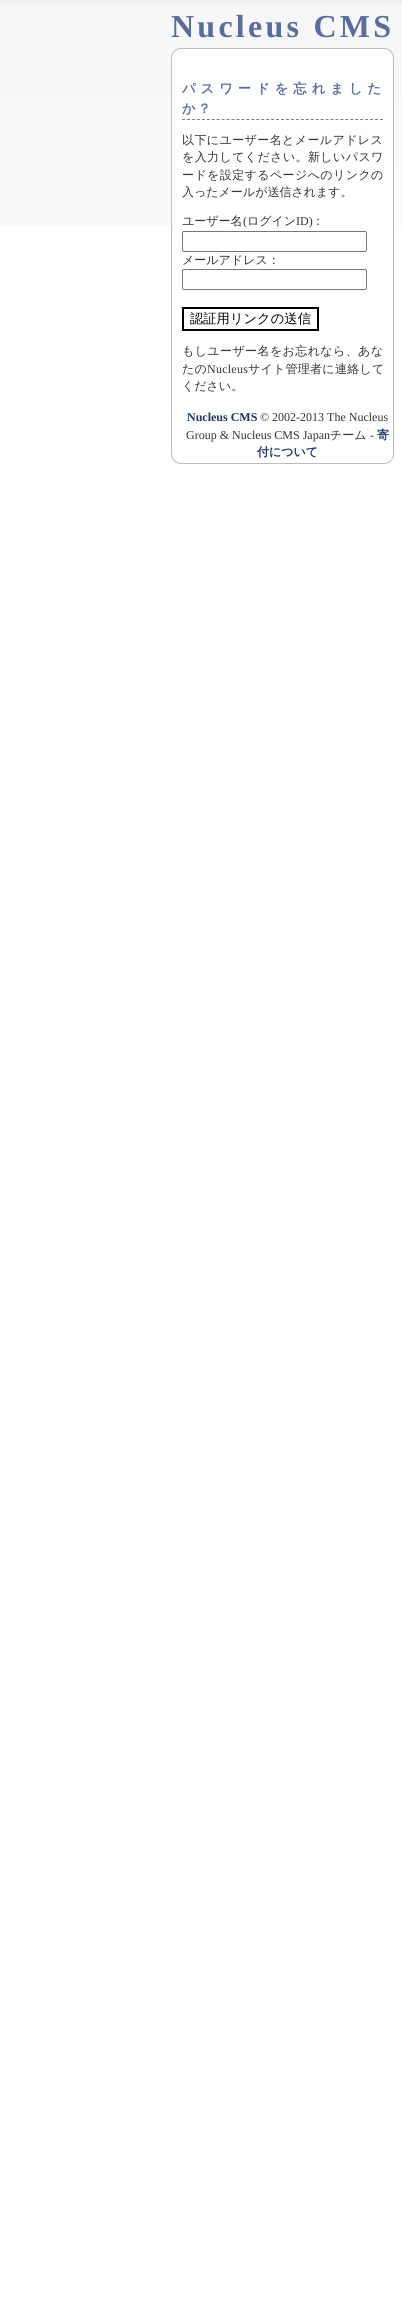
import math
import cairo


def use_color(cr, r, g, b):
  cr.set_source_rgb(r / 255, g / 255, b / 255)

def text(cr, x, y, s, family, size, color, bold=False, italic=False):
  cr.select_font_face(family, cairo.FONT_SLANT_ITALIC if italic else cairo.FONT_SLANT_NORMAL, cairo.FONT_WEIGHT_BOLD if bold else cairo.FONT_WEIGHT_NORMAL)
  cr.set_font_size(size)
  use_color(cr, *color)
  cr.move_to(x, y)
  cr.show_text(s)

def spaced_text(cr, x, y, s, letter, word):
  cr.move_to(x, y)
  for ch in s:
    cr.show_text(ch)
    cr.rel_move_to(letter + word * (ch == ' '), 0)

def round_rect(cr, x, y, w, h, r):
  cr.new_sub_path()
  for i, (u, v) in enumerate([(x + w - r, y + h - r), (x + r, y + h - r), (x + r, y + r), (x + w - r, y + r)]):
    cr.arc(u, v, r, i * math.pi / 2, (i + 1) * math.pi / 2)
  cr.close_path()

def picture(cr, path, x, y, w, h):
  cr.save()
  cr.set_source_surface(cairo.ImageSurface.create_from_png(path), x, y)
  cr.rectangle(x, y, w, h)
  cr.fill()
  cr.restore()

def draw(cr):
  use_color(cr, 255, 255, 255)
  cr.paint()
  picture(cr, "img_01.png", 0, 0, 402, 226)
  use_color(cr, 255, 255, 255)
  round_rect(cr, 171.5, 48.5, 222, 415, 9.5)
  cr.fill_preserve()
  use_color(cr, 187, 187, 187)
  cr.set_line_width(1)
  cr.stroke()
  cr.new_path()
  cr.move_to(182, 119.5)
  cr.line_to(383, 119.5)
  use_color(cr, 128, 128, 128)
  cr.set_dash([3, 1.95])
  cr.stroke()
  round_rect(cr, 182.5, 231.5, 184, 20, 1.5)
  use_color(cr, 118, 118, 118)
  cr.set_dash([])
  cr.stroke()
  round_rect(cr, 182.5, 269.5, 184, 20, 1.5)
  cr.stroke()
  cr.rectangle(183, 308, 135, 22)
  use_color(cr, 0, 0, 0)
  cr.set_line_width(2)
  cr.stroke()
  cr.select_font_face("Liberation Serif", cairo.FONT_SLANT_NORMAL, cairo.FONT_WEIGHT_BOLD)
  cr.set_font_size(32)
  use_color(cr, 89, 109, 157)
  spaced_text(cr, 171, 37, "Nucleus CMS", 3.25, 0)
  cr.select_font_face("WenQuanYi Zen Hei", cairo.FONT_SLANT_NORMAL, cairo.FONT_WEIGHT_BOLD)
  cr.set_font_size(13.3)
  spaced_text(cr, 182, 93, "パスワードを忘れました", 5, 0)
  spaced_text(cr, 182, 113, "か？", 2, 0)
  cr.select_font_face("WenQuanYi Zen Hei Medium")
  cr.set_font_size(12)
  use_color(cr, 51, 51, 51)
  spaced_text(cr, 182, 144, "以下にユーザー名とメールアドレス", 0.4, 0)
  spaced_text(cr, 182, 161, "を入力してください。新しいパスワ", 0.4, 0)
  spaced_text(cr, 182, 179, "ードを設定するページへのリンクの", 0.4, 0)
  text(cr, 182, 196, "入ったメールが送信されます。", "WenQuanYi Zen Hei Medium", 12, (51, 51, 51))
  text(cr, 182, 225, "ユーザー名", "WenQuanYi Zen Hei Medium", 12, (51, 51, 51))
  text(cr, 243, 225, "(", "Liberation Serif", 12, (51, 51, 51))
  text(cr, 247, 225, "ログイン", "WenQuanYi Zen Hei Medium", 12, (51, 51, 51))
  text(cr, 296, 225, "ID)", "Liberation Serif", 12, (51, 51, 51))
  text(cr, 312, 225, "：", "WenQuanYi Zen Hei Medium", 12, (51, 51, 51))
  text(cr, 182, 264, "メールアドレス：", "WenQuanYi Zen Hei Medium", 12, (51, 51, 51))
  text(cr, 190, 323, "認証用リンクの送信", "WenQuanYi Zen Hei Medium", 13.3, (0, 0, 0))
  cr.set_font_size(12)
  use_color(cr, 51, 51, 51)
  spaced_text(cr, 182, 355, "もしユーザー名をお忘れなら、あな", 0.4, 0)
  spaced_text(cr, 182, 373, "たの", 0.25, 0)
  cr.select_font_face("Liberation Serif")
  spaced_text(cr, 207, 373, "Nucleus", 0.25, 0)
  cr.select_font_face("WenQuanYi Zen Hei Medium")
  spaced_text(cr, 248, 373, "サイト管理者に連絡して", 0.25, 0)
  text(cr, 182, 390, "ください。", "WenQuanYi Zen Hei Medium", 12, (51, 51, 51))
  text(cr, 187, 421, "Nucleus CMS", "Liberation Serif", 12, (29, 53, 101), bold=True)
  text(cr, 260, 421, "© 2002-2013 The Nucleus", "Liberation Serif", 12, (51, 51, 51))
  text(cr, 186, 439, "Group & Nucleus CMS Japan", "Liberation Serif", 12, (51, 51, 51))
  text(cr, 330, 439, "チーム", "WenQuanYi Zen Hei Medium", 12, (51, 51, 51))
  text(cr, 370, 439, "-", "Liberation Serif", 12, (51, 51, 51))
  text(cr, 377, 439, "寄", "WenQuanYi Zen Hei", 12, (29, 53, 101), bold=True)
  text(cr, 257, 456, "付について", "WenQuanYi Zen Hei", 12, (29, 53, 101), bold=True)


surface = cairo.ImageSurface(cairo.FORMAT_RGB24, 402, 2302)
cr = cairo.Context(surface)
options = cairo.FontOptions()
options.set_hint_metrics(cairo.HINT_METRICS_OFF)
options.set_hint_style(cairo.HINT_STYLE_NONE)
cr.set_font_options(options)
cr.set_miter_limit(4)
draw(cr)
surface.write_to_png("out.png")
